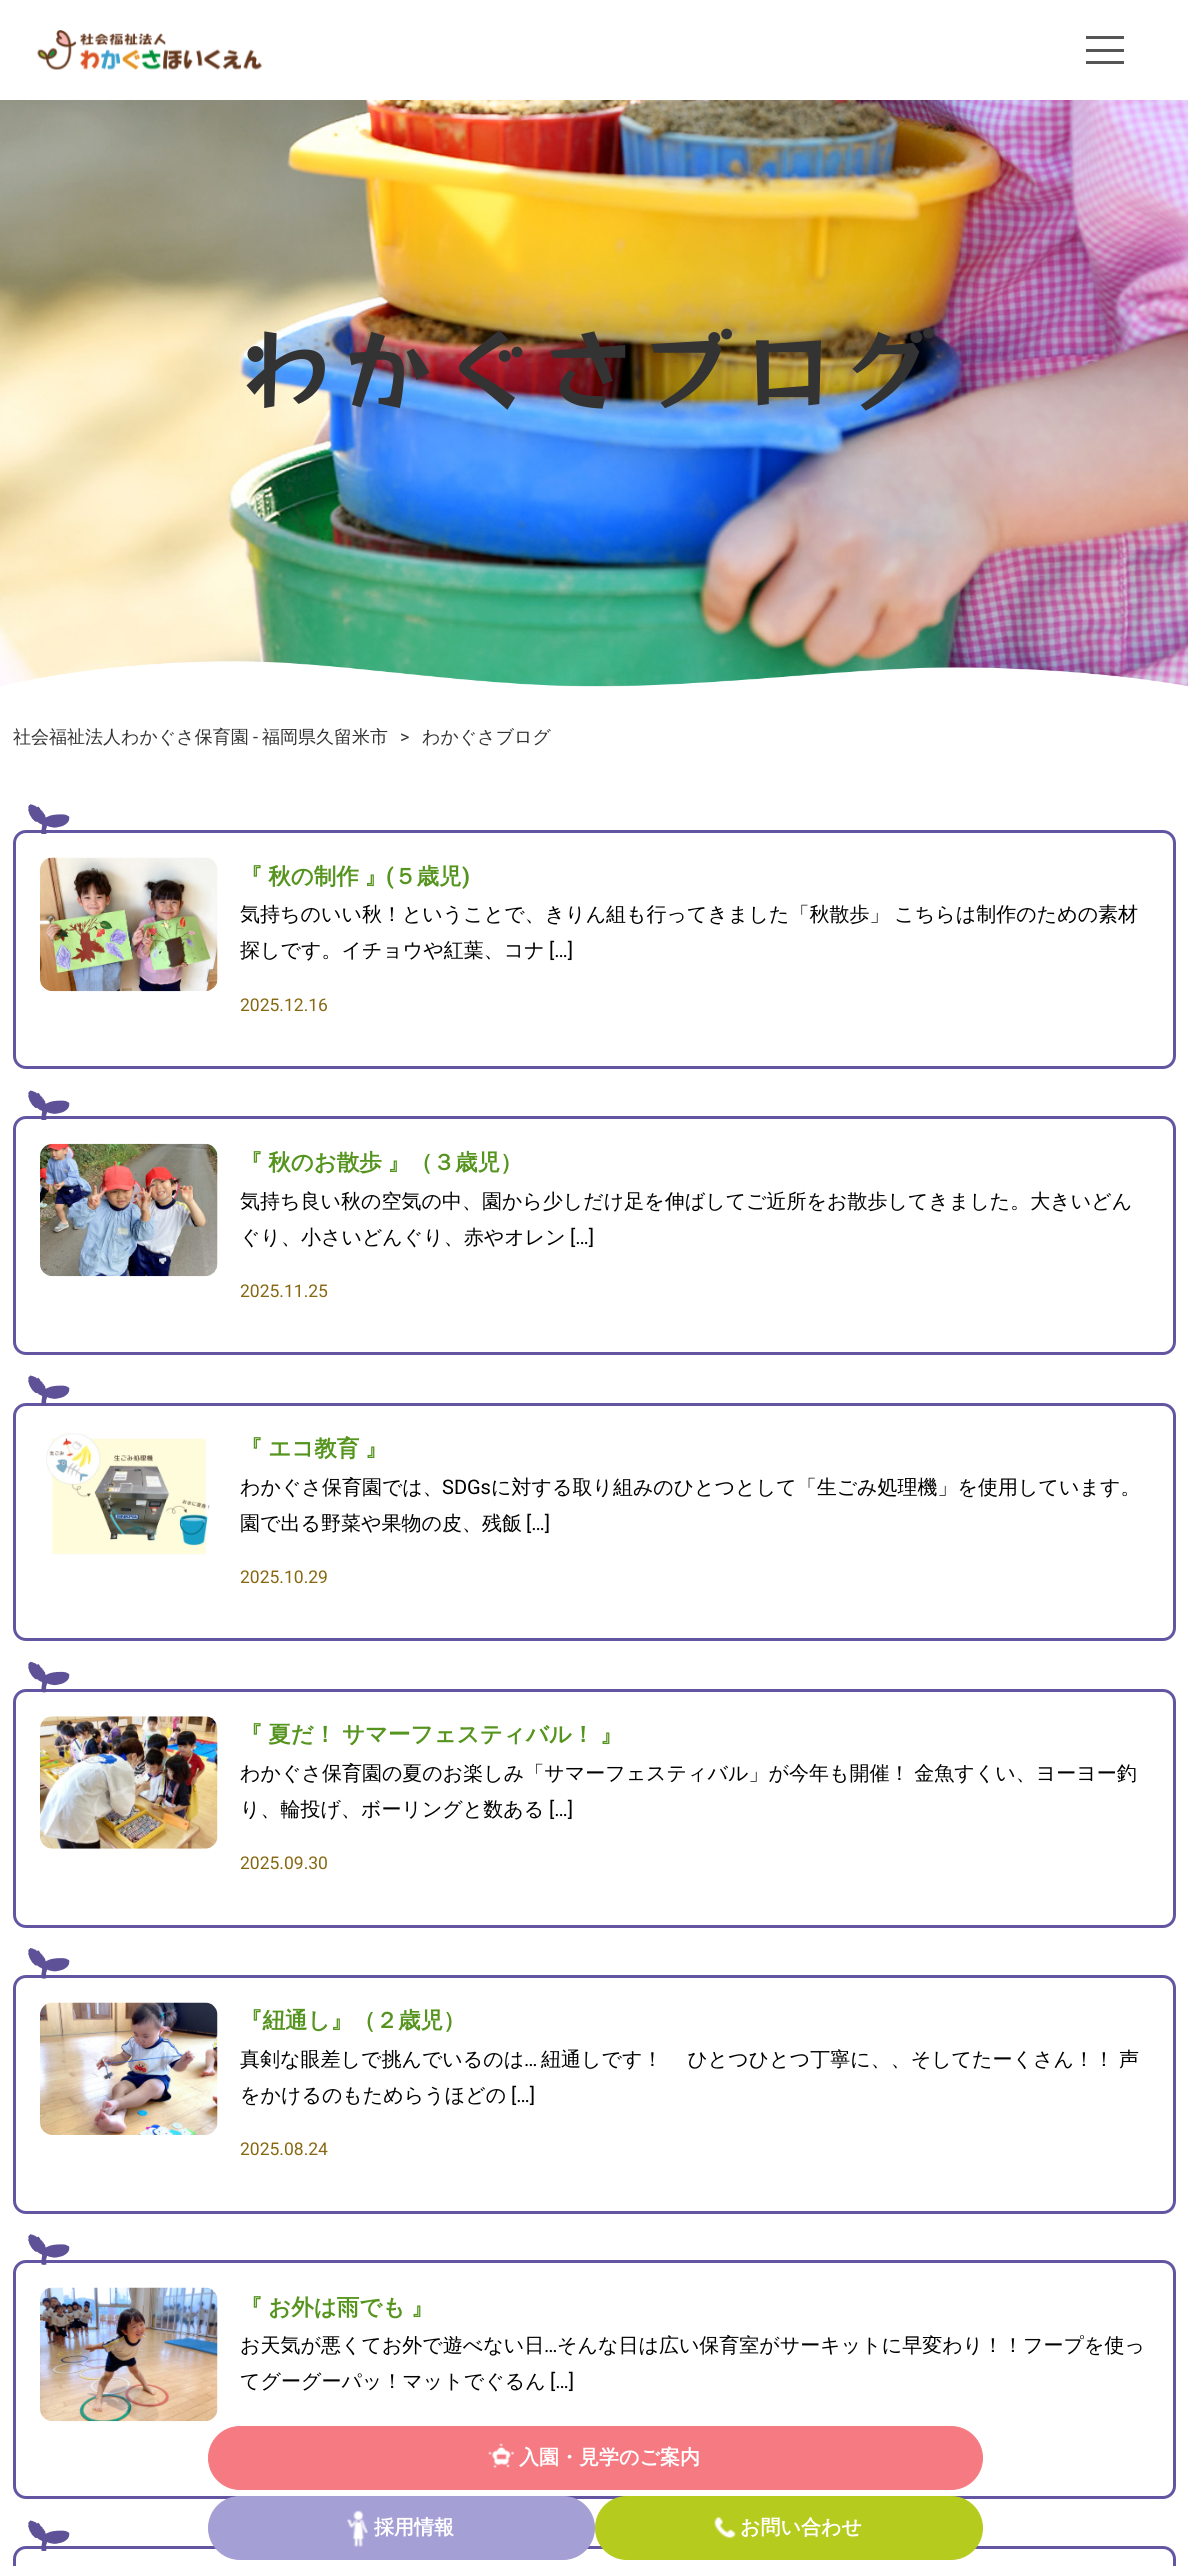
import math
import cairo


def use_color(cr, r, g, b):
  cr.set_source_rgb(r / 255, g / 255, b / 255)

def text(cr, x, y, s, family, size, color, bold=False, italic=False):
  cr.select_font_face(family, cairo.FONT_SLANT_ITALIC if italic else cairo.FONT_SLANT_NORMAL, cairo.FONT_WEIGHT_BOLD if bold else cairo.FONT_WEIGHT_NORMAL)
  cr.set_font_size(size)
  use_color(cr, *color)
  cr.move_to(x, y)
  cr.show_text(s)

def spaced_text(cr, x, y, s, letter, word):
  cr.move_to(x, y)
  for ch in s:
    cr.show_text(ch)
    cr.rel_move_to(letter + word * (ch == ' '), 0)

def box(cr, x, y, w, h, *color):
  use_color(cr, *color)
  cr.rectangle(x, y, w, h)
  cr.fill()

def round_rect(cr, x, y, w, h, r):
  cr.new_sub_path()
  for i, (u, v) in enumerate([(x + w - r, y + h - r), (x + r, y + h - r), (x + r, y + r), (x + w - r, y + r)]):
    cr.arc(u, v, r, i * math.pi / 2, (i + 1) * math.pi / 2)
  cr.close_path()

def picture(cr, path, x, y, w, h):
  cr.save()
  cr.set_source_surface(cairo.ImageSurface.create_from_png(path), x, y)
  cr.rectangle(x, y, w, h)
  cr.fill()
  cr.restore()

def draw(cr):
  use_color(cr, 255, 255, 255)
  cr.paint()
  picture(cr, "img_01.png", 0, 100, 1188, 587)
  picture(cr, "img_02.png", 0, 661, 1188, 27)
  round_rect(cr, 14.5, 831.5, 1160, 236, 11.5)
  use_color(cr, 99, 85, 162)
  cr.set_line_width(3)
  cr.stroke()
  picture(cr, "img_03.png", 28, 804, 42, 30)
  picture(cr, "img_04.png", 40, 857, 178, 135)
  round_rect(cr, 14.5, 1117.5, 1160, 236, 11.5)
  cr.stroke()
  picture(cr, "img_05.png", 28, 1090, 42, 30)
  picture(cr, "img_06.png", 40, 1143, 178, 134)
  round_rect(cr, 14.5, 1404.5, 1160, 235, 11.5)
  cr.stroke()
  picture(cr, "img_07.png", 28, 1375, 42, 31)
  picture(cr, "img_08.png", 46, 1433, 164, 122)
  round_rect(cr, 14.5, 1690.5, 1160, 236, 11.5)
  cr.stroke()
  picture(cr, "img_09.png", 28, 1661, 42, 32)
  picture(cr, "img_10.png", 40, 1716, 178, 133)
  round_rect(cr, 14.5, 1976.5, 1160, 236, 11.5)
  cr.stroke()
  picture(cr, "img_11.png", 28, 1948, 42, 31)
  picture(cr, "img_12.png", 40, 2002, 178, 133)
  round_rect(cr, 14.5, 2261.5, 1160, 236, 11.5)
  cr.stroke()
  picture(cr, "img_13.png", 28, 2234, 42, 31)
  picture(cr, "img_14.png", 40, 2287, 178, 135)
  round_rect(cr, 14.5, 2547.5, 1160, 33, 11.5)
  cr.stroke()
  picture(cr, "img_15.png", 28, 2520, 42, 31)
  picture(cr, "img_16.png", 37, 30, 225, 40)
  box(cr, 1086, 36, 38, 3, 85, 85, 85)
  box(cr, 1086, 49, 38, 3, 85, 85, 85)
  box(cr, 1086, 61, 38, 3, 85, 85, 85)
  use_color(cr, 246, 122, 130)
  round_rect(cr, 208.5, 2426.5, 774, 63, 31.5)
  cr.fill_preserve()
  cr.set_line_width(1)
  cr.stroke()
  picture(cr, "img_17.png", 488, 2443, 27, 25)
  use_color(cr, 164, 159, 213)
  round_rect(cr, 208.5, 2496.5, 386, 63, 31.5)
  cr.fill_preserve()
  cr.stroke()
  picture(cr, "img_18.png", 347, 2510, 21, 37)
  use_color(cr, 181, 203, 29)
  round_rect(cr, 595.5, 2496.5, 387, 63, 31.5)
  cr.fill_preserve()
  cr.stroke()
  picture(cr, "img_19.png", 714, 2517, 22, 22)
  cr.select_font_face("RocknRoll One")
  cr.set_font_size(88)
  use_color(cr, 51, 51, 51)
  spaced_text(cr, 243, 403, "わかぐさブログ", 12.25, 0)
  text(cr, 13, 743, "社会福祉法人わかぐさ保育園", "WenQuanYi Zen Hei Medium", 18, (51, 51, 51))
  text(cr, 253, 743, "-", "Roboto", 18, (51, 51, 51))
  text(cr, 262, 743, "福岡県久留米市", "WenQuanYi Zen Hei Medium", 18, (51, 51, 51))
  text(cr, 400, 743, ">", "Roboto", 18, (51, 51, 51))
  text(cr, 422, 743, "わかぐさブログ", "WenQuanYi Zen Hei Medium", 18, (51, 51, 51))
  cr.select_font_face("WenQuanYi Zen Hei", cairo.FONT_SLANT_NORMAL, cairo.FONT_WEIGHT_BOLD)
  cr.set_font_size(22.5)
  use_color(cr, 85, 148, 30)
  spaced_text(cr, 240, 884, "『 秋の制作 』", 0, -1)
  text(cr, 386, 884, "(", "Roboto", 22.5, (85, 148, 30), bold=True)
  text(cr, 394, 884, "５歳児", "WenQuanYi Zen Hei", 22.5, (85, 148, 30), bold=True)
  text(cr, 462, 884, ")", "Roboto", 22.5, (85, 148, 30), bold=True)
  cr.select_font_face("WenQuanYi Zen Hei Medium")
  cr.set_font_size(20)
  use_color(cr, 0, 0, 0)
  spaced_text(cr, 240, 921, "気持ちのいい秋！ということで、きりん組も行ってきました「秋散歩」 こちらは制作のための素材", 0, -1)
  text(cr, 240, 957, "探しです。イチョウや紅葉、コナ", "WenQuanYi Zen Hei Medium", 20, (0, 0, 0))
  text(cr, 549, 957, "[…]", "Roboto", 20, (0, 0, 0))
  text(cr, 240, 1011, "2025.12.16", "Roboto", 17.5, (135, 104, 18))
  cr.select_font_face("WenQuanYi Zen Hei", cairo.FONT_SLANT_NORMAL, cairo.FONT_WEIGHT_BOLD)
  cr.set_font_size(22.5)
  use_color(cr, 85, 148, 30)
  spaced_text(cr, 240, 1170, "『 秋のお散歩 』（３歳児）", 0, -1)
  text(cr, 240, 1208, "気持ち良い秋の空気の中、園から少しだけ足を伸ばしてご近所をお散歩してきました。大きいどん", "WenQuanYi Zen Hei Medium", 20, (0, 0, 0))
  text(cr, 240, 1244, "ぐり、小さいどんぐり、赤やオレン", "WenQuanYi Zen Hei Medium", 20, (0, 0, 0))
  text(cr, 570, 1244, "[…]", "Roboto", 20, (0, 0, 0))
  text(cr, 240, 1297, "2025.11.25", "Roboto", 17.5, (135, 104, 18))
  cr.select_font_face("WenQuanYi Zen Hei", cairo.FONT_SLANT_NORMAL, cairo.FONT_WEIGHT_BOLD)
  cr.set_font_size(22.5)
  use_color(cr, 85, 148, 30)
  spaced_text(cr, 240, 1456, "『 エコ教育 』", 0, -1)
  text(cr, 240, 1494, "わかぐさ保育園では、", "WenQuanYi Zen Hei Medium", 20, (0, 0, 0))
  text(cr, 442, 1494, "SDGs", "Roboto", 20, (0, 0, 0))
  text(cr, 491, 1494, "に対する取り組みのひとつとして「生ごみ処理機」を使用しています。", "WenQuanYi Zen Hei Medium", 20, (0, 0, 0))
  text(cr, 240, 1530, "園で出る野菜や果物の皮、残飯", "WenQuanYi Zen Hei Medium", 20, (0, 0, 0))
  text(cr, 526, 1530, "[…]", "Roboto", 20, (0, 0, 0))
  text(cr, 240, 1583, "2025.10.29", "Roboto", 17.5, (135, 104, 18))
  cr.select_font_face("WenQuanYi Zen Hei", cairo.FONT_SLANT_NORMAL, cairo.FONT_WEIGHT_BOLD)
  cr.set_font_size(22.5)
  use_color(cr, 85, 148, 30)
  spaced_text(cr, 240, 1742, "『 夏だ！ サマーフェスティバル！ 』", 0, -1)
  cr.select_font_face("WenQuanYi Zen Hei Medium")
  cr.set_font_size(20)
  use_color(cr, 0, 0, 0)
  spaced_text(cr, 240, 1780, "わかぐさ保育園の夏のお楽しみ「サマーフェスティバル」が今年も開催！ 金魚すくい、ヨーヨー釣", 0, -1)
  text(cr, 240, 1816, "り、輪投げ、ボーリングと数ある", "WenQuanYi Zen Hei Medium", 20, (0, 0, 0))
  text(cr, 549, 1816, "[…]", "Roboto", 20, (0, 0, 0))
  text(cr, 240, 1869, "2025.09.30", "Roboto", 17.5, (135, 104, 18))
  text(cr, 240, 2028, "『紐通し』（２歳児）", "WenQuanYi Zen Hei", 22.5, (85, 148, 30), bold=True)
  text(cr, 240, 2066, "真剣な眼差しで挑んでいるのは", "WenQuanYi Zen Hei Medium", 20, (0, 0, 0))
  text(cr, 524, 2066, "…", "Roboto", 20, (0, 0, 0))
  cr.select_font_face("WenQuanYi Zen Hei Medium")
  spaced_text(cr, 541, 2066, "紐通しです！　 ひとつひとつ丁寧に、、そしてたーくさん！！ 声", 0, -1)
  text(cr, 240, 2102, "をかけるのもためらうほどの", "WenQuanYi Zen Hei Medium", 20, (0, 0, 0))
  text(cr, 511, 2102, "[…]", "Roboto", 20, (0, 0, 0))
  text(cr, 240, 2155, "2025.08.24", "Roboto", 17.5, (135, 104, 18))
  cr.select_font_face("WenQuanYi Zen Hei", cairo.FONT_SLANT_NORMAL, cairo.FONT_WEIGHT_BOLD)
  cr.set_font_size(22.5)
  use_color(cr, 85, 148, 30)
  spaced_text(cr, 240, 2315, "『 お外は雨でも 』", 0, -1)
  text(cr, 240, 2352, "お天気が悪くてお外で遊べない日", "WenQuanYi Zen Hei Medium", 20, (0, 0, 0))
  text(cr, 544, 2352, "…", "Roboto", 20, (0, 0, 0))
  text(cr, 557, 2352, "そんな日は広い保育室がサーキットに早変わり！！フープを使っ", "WenQuanYi Zen Hei Medium", 20, (0, 0, 0))
  text(cr, 240, 2388, "てグーグーパッ！マットでぐるん", "WenQuanYi Zen Hei Medium", 20, (0, 0, 0))
  text(cr, 550, 2388, "[…]", "Roboto", 20, (0, 0, 0))
  text(cr, 519, 2464, "入園・見学のご案内", "WenQuanYi Zen Hei", 20, (255, 255, 255), bold=True)
  text(cr, 374, 2534, "採用情報", "WenQuanYi Zen Hei", 20, (255, 255, 255), bold=True)
  text(cr, 740, 2534, "お問い合わせ", "WenQuanYi Zen Hei", 20, (255, 255, 255), bold=True)


surface = cairo.ImageSurface(cairo.FORMAT_RGB24, 1188, 2566)
cr = cairo.Context(surface)
options = cairo.FontOptions()
options.set_hint_metrics(cairo.HINT_METRICS_OFF)
options.set_hint_style(cairo.HINT_STYLE_NONE)
cr.set_font_options(options)
cr.set_miter_limit(4)
draw(cr)
surface.write_to_png("out.png")
